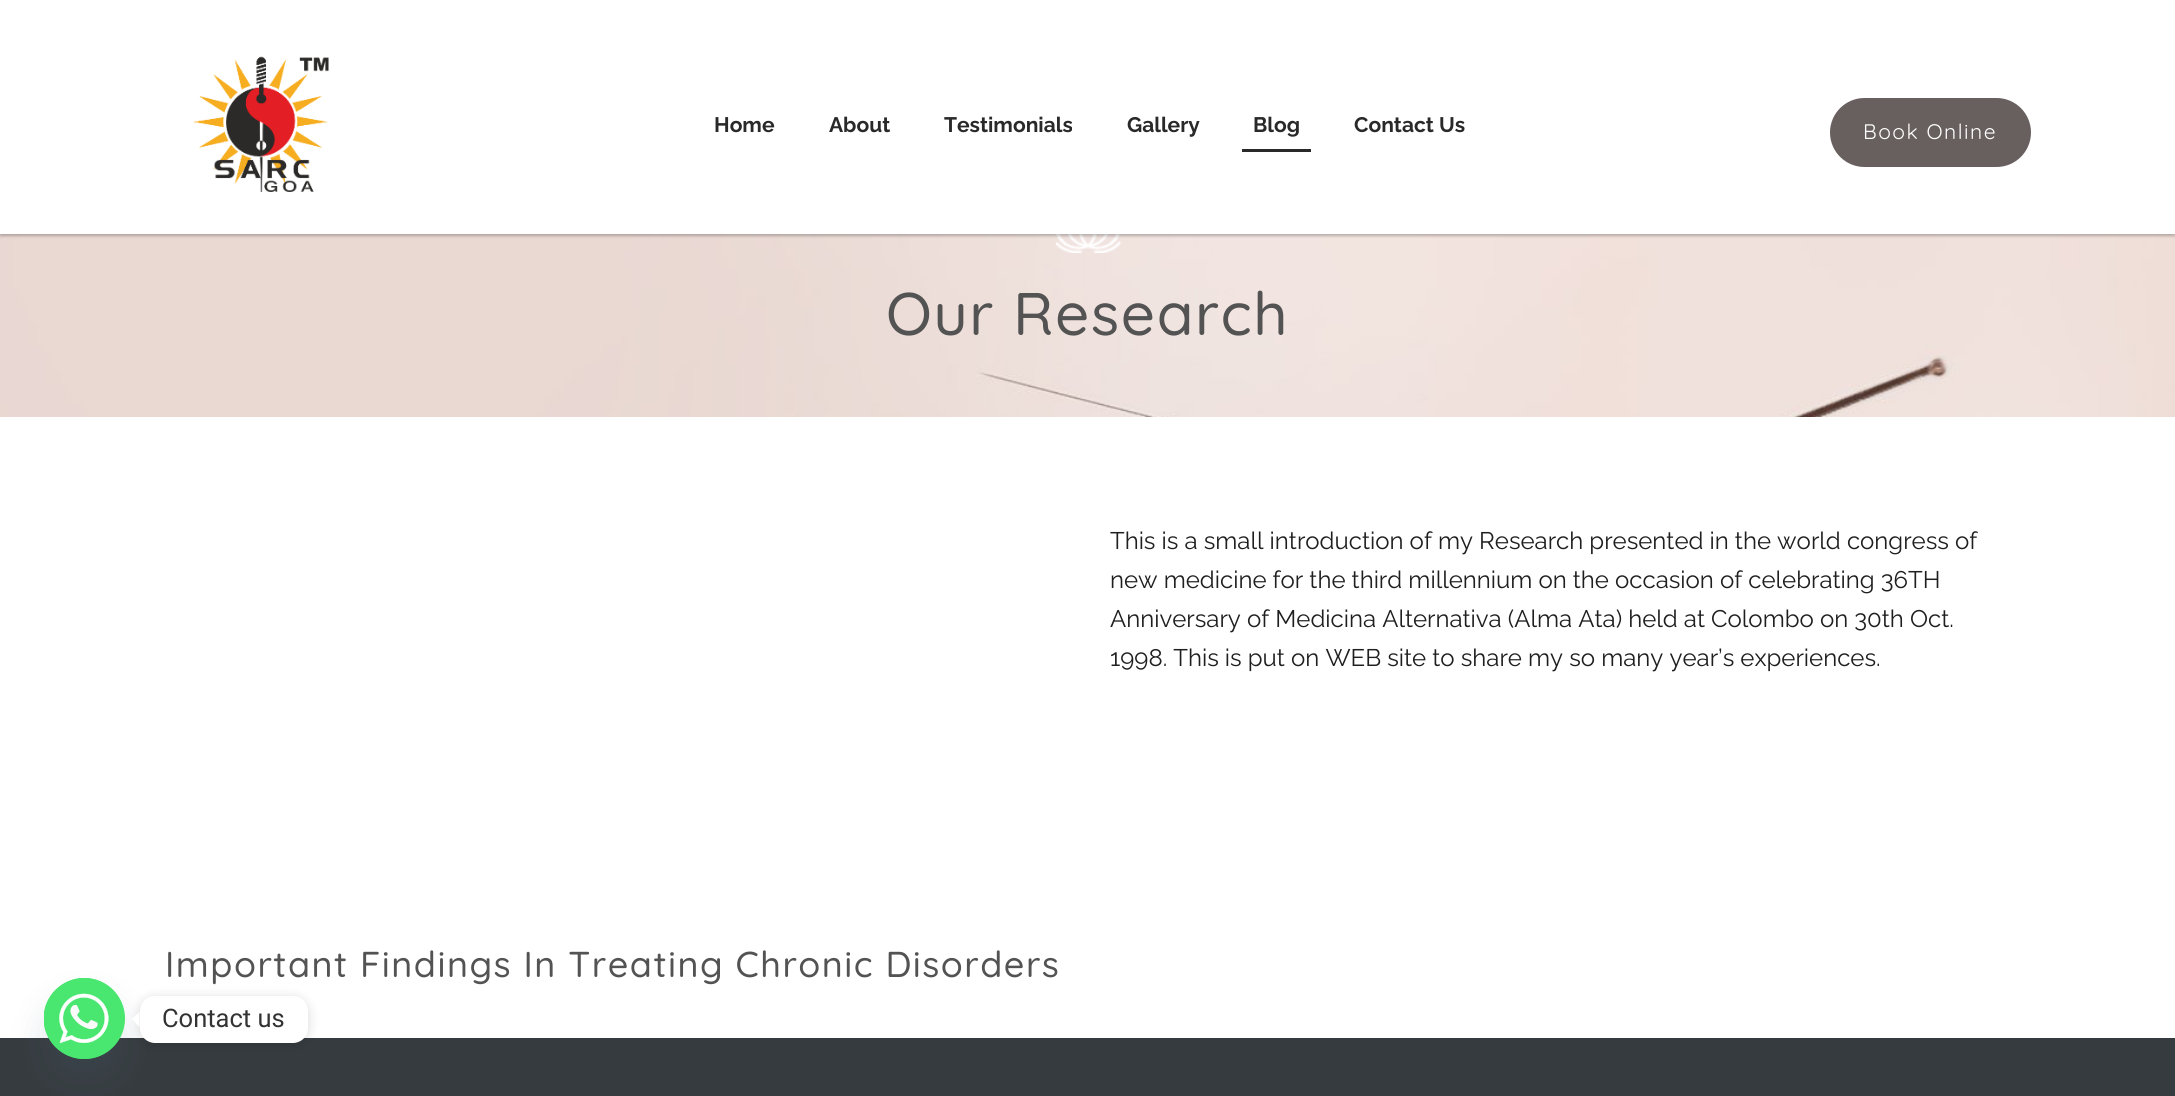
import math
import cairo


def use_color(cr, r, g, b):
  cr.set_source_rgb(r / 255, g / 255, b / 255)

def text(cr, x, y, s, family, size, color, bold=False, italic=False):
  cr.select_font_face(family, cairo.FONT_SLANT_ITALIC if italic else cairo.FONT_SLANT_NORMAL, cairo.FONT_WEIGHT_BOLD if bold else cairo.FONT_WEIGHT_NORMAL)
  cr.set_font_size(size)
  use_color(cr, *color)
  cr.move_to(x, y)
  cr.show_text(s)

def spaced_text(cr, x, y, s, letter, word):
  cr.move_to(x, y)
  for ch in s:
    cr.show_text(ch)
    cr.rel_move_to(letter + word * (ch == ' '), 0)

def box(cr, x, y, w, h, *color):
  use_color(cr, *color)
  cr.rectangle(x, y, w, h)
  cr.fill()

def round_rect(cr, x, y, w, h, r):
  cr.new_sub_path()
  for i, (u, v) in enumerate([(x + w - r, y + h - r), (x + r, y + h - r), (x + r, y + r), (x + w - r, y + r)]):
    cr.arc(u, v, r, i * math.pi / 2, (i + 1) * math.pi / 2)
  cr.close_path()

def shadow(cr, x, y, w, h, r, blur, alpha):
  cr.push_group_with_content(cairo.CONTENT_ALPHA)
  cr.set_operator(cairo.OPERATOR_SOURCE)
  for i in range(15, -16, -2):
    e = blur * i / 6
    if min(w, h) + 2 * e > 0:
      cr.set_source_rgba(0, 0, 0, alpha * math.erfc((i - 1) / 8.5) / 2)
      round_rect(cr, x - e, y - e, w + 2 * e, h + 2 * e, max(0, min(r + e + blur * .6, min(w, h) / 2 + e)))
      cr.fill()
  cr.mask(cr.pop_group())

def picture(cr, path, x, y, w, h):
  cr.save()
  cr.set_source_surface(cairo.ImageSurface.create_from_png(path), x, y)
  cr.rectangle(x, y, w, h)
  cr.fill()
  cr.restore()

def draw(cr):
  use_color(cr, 255, 255, 255)
  cr.paint()
  picture(cr, "img_02.png", 0, 234, 2175, 183)
  picture(cr, "img_03.png", 1056, 234, 65, 19)
  use_color(cr, 0, 0, 0)
  shadow(cr, 0, 2, 2175, 234, 0, 1.5, 0.25)
  box(cr, 0, 0, 2175, 234, 255, 255, 255)
  picture(cr, "img_01.png", 193, 56, 136, 136)
  box(cr, 1242, 149, 69, 3, 42, 41, 41)
  use_color(cr, 104, 96, 94)
  round_rect(cr, 1830, 98, 201, 69, 34.5)
  cr.fill()
  box(cr, 0, 1038, 2175, 58, 54, 59, 63)
  use_color(cr, 73, 104, 126)
  shadow(cr, 44, 1002, 81, 81, 40.5, 18, 0.16)
  use_color(cr, 73, 230, 112)
  cr.arc(84.5, 1018.5, 40.5, 0, 2 * math.pi)
  cr.fill()
  picture(cr, "img_04.png", 44, 978, 81, 81)
  use_color(cr, 0, 0, 0)
  shadow(cr, 140, 998, 168, 46, 15, 6, 0.15)
  use_color(cr, 255, 255, 255)
  round_rect(cr, 140, 996, 168, 47, 15)
  cr.fill()
  cr.new_path()
  cr.move_to(139.5, 1012)
  cr.line_to(139.5, 1027)
  cr.line_to(132, 1019)
  cr.close_path()
  cr.fill()
  text(cr, 714, 132, "Home", "Raleway", 21, (42, 41, 41), bold=True)
  text(cr, 829, 132, "About", "Raleway", 21, (42, 41, 41), bold=True)
  text(cr, 944, 132, "Testimonials", "Raleway", 21, (42, 41, 41), bold=True)
  text(cr, 1127, 132, "Gallery", "Raleway", 21, (42, 41, 41), bold=True)
  text(cr, 1253, 132, "Blog", "Raleway", 21, (42, 41, 41), bold=True)
  text(cr, 1354, 132, "Contact Us", "Raleway", 21, (42, 41, 41), bold=True)
  cr.select_font_face("Quicksand")
  use_color(cr, 255, 255, 255)
  spaced_text(cr, 1863, 139, "Book Online", 1.5, 0)
  cr.select_font_face("Quicksand Medium")
  cr.set_font_size(60)
  use_color(cr, 83, 83, 83)
  spaced_text(cr, 886, 335, "Our Research", 1.5, 0)
  text(cr, 1110, 549, "This is a small introduction of my Research presented in the world congress of", "Raleway", 24, (31, 31, 31))
  text(cr, 1110, 588, "new medicine for the third millennium on the occasion of celebrating 36TH", "Raleway", 24, (31, 31, 31))
  text(cr, 1110, 627, "Anniversary of Medicina Alternativa (Alma Ata) held at Colombo on 30th Oct.", "Raleway", 24, (31, 31, 31))
  text(cr, 1110, 666, "1998. This is put on WEB site to share my so many year’s experiences.", "Raleway", 24, (31, 31, 31))
  cr.select_font_face("Quicksand Medium")
  cr.set_font_size(36)
  use_color(cr, 83, 83, 83)
  spaced_text(cr, 165, 977, "Important Findings In Treating Chronic Disorders", 1.5, 0)
  text(cr, 162, 1027, "Contact us", "Roboto", 25.5, (51, 51, 51))


surface = cairo.ImageSurface(cairo.FORMAT_RGB24, 2175, 1096)
cr = cairo.Context(surface)
options = cairo.FontOptions()
options.set_hint_metrics(cairo.HINT_METRICS_OFF)
options.set_hint_style(cairo.HINT_STYLE_NONE)
cr.set_font_options(options)
cr.set_miter_limit(4)
draw(cr)
surface.write_to_png("out.png")
